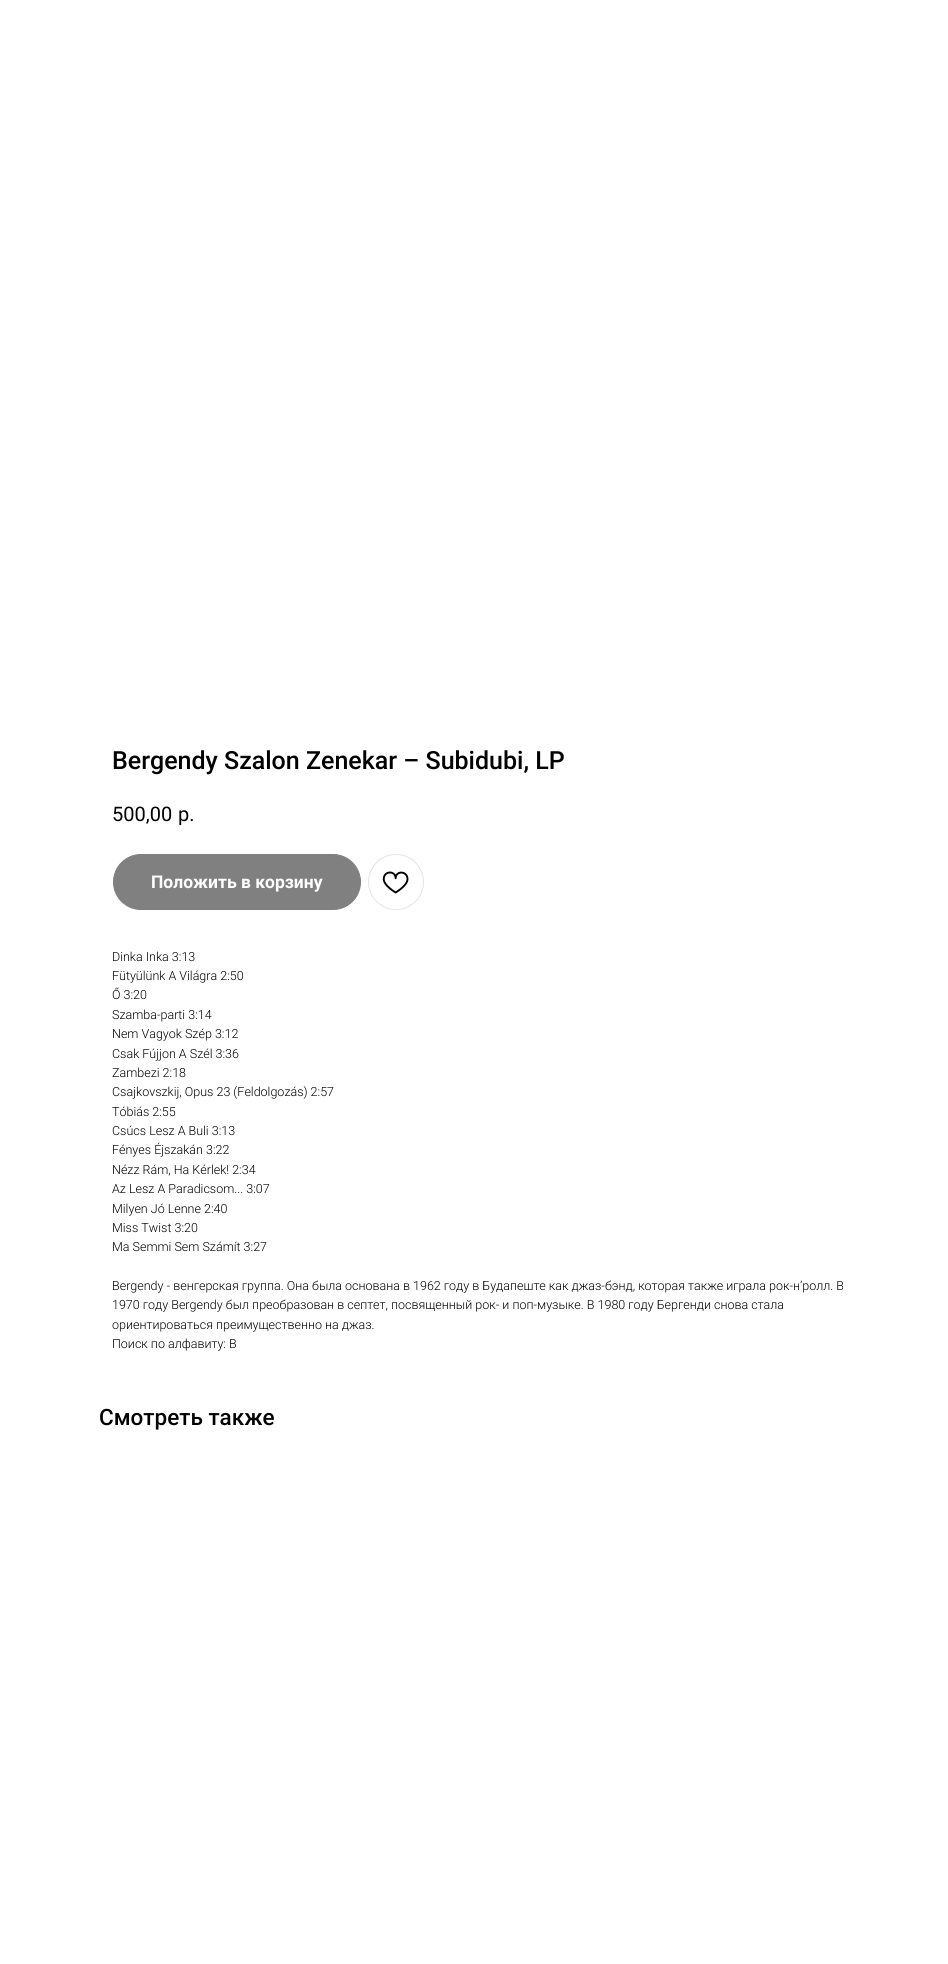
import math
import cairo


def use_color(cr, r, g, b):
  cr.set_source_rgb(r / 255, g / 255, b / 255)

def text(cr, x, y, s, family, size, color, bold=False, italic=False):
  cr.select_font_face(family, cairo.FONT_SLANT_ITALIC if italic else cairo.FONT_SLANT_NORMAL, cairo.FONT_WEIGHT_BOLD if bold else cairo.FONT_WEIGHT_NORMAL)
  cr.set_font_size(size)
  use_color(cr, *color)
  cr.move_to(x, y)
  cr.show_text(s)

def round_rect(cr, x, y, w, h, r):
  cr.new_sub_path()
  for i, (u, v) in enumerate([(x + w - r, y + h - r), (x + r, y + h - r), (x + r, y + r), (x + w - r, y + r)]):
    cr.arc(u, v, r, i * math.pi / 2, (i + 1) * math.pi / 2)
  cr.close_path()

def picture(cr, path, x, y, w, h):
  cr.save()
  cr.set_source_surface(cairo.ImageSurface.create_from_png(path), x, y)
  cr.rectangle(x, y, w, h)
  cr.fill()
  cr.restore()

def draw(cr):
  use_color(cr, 255, 255, 255)
  cr.paint()
  use_color(cr, 128, 128, 128)
  round_rect(cr, 113.5, 854.5, 247, 55, 27.5)
  cr.fill_preserve()
  cr.set_line_width(1)
  cr.stroke()
  cr.arc(396, 882, 27.5, 0, 2 * math.pi)
  use_color(cr, 228, 228, 228)
  cr.stroke()
  picture(cr, "img_01.png", 382, 871, 27, 23)
  text(cr, 112, 769, "Bergendy Szalon Zenekar – Subidubi, LP", "Roboto Medium", 25, (0, 0, 0))
  text(cr, 112, 821, "500,00", "Roboto", 20, (0, 0, 0))
  text(cr, 178, 821, "р.", "Roboto", 20, (0, 0, 0))
  text(cr, 151, 888, "Положить в корзину", "Roboto", 17.5, (255, 255, 255), bold=True)
  text(cr, 112, 961, "Dinka Inka 3:13", "Roboto Light", 12.5, (0, 0, 0))
  text(cr, 112, 980, "Fütyülünk A Világra 2:50", "Roboto Light", 12.5, (0, 0, 0))
  text(cr, 112, 999, "Ő 3:20", "Roboto Light", 12.5, (0, 0, 0))
  text(cr, 112, 1019, "Szamba-parti 3:14", "Roboto Light", 12.5, (0, 0, 0))
  text(cr, 112, 1038, "Nem Vagyok Szép 3:12", "Roboto Light", 12.5, (0, 0, 0))
  text(cr, 112, 1058, "Csak Fújjon A Szél 3:36", "Roboto Light", 12.5, (0, 0, 0))
  text(cr, 112, 1077, "Zambezi 2:18", "Roboto Light", 12.5, (0, 0, 0))
  text(cr, 112, 1096, "Csajkovszkij, Opus 23 (Feldolgozás) 2:57", "Roboto Light", 12.5, (0, 0, 0))
  text(cr, 112, 1116, "Tóbiás 2:55", "Roboto Light", 12.5, (0, 0, 0))
  text(cr, 112, 1135, "Csúcs Lesz A Buli 3:13", "Roboto Light", 12.5, (0, 0, 0))
  text(cr, 112, 1154, "Fényes Éjszakán 3:22", "Roboto Light", 12.5, (0, 0, 0))
  text(cr, 112, 1174, "Nézz Rám, Ha Kérlek! 2:34", "Roboto Light", 12.5, (0, 0, 0))
  text(cr, 112, 1193, "Az Lesz A Paradicsom... 3:07", "Roboto Light", 12.5, (0, 0, 0))
  text(cr, 112, 1213, "Milyen Jó Lenne 2:40", "Roboto Light", 12.5, (0, 0, 0))
  text(cr, 112, 1232, "Miss Twist 3:20", "Roboto Light", 12.5, (0, 0, 0))
  text(cr, 112, 1251, "Ma Semmi Sem Számít 3:27", "Roboto Light", 12.5, (0, 0, 0))
  text(cr, 112, 1290, "Bergendy - венгерская группа. Она была основана в 1962 году в Будапеште как джаз-бэнд, которая также играла рок-н’ролл. В", "Roboto Light", 12.5, (0, 0, 0))
  text(cr, 112, 1309, "1970 году Bergendy был преобразован в септет, посвященный рок- и поп-музыке. В 1980 году Бергенди снова стала", "Roboto Light", 12.5, (0, 0, 0))
  text(cr, 112, 1329, "ориентироваться преимущественно на джаз.", "Roboto Light", 12.5, (0, 0, 0))
  text(cr, 112, 1348, "Поиск по алфавиту: B", "Roboto Light", 12.5, (0, 0, 0))
  text(cr, 99, 1425, "Смотреть также", "Roboto Medium", 22.5, (0, 0, 0))


surface = cairo.ImageSurface(cairo.FORMAT_RGB24, 948, 1964)
cr = cairo.Context(surface)
options = cairo.FontOptions()
options.set_hint_metrics(cairo.HINT_METRICS_OFF)
options.set_hint_style(cairo.HINT_STYLE_NONE)
cr.set_font_options(options)
cr.set_miter_limit(4)
draw(cr)
surface.write_to_png("out.png")
